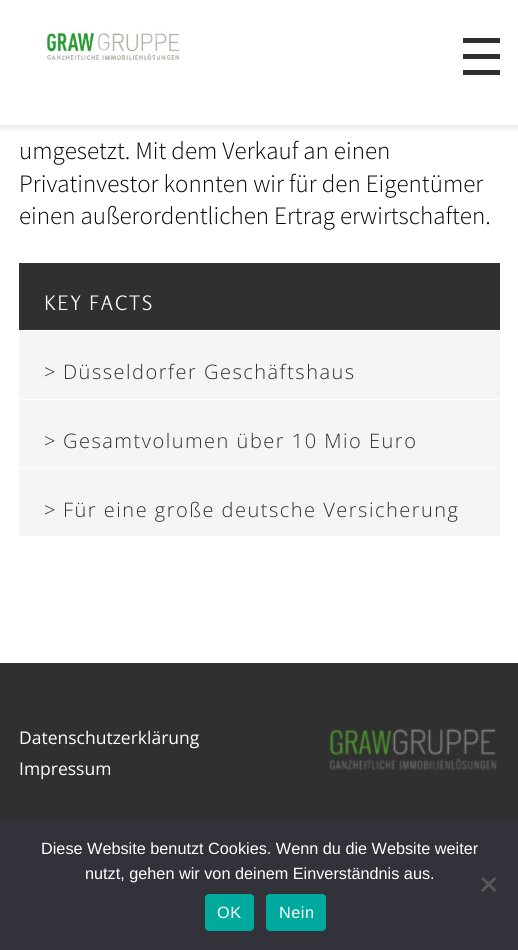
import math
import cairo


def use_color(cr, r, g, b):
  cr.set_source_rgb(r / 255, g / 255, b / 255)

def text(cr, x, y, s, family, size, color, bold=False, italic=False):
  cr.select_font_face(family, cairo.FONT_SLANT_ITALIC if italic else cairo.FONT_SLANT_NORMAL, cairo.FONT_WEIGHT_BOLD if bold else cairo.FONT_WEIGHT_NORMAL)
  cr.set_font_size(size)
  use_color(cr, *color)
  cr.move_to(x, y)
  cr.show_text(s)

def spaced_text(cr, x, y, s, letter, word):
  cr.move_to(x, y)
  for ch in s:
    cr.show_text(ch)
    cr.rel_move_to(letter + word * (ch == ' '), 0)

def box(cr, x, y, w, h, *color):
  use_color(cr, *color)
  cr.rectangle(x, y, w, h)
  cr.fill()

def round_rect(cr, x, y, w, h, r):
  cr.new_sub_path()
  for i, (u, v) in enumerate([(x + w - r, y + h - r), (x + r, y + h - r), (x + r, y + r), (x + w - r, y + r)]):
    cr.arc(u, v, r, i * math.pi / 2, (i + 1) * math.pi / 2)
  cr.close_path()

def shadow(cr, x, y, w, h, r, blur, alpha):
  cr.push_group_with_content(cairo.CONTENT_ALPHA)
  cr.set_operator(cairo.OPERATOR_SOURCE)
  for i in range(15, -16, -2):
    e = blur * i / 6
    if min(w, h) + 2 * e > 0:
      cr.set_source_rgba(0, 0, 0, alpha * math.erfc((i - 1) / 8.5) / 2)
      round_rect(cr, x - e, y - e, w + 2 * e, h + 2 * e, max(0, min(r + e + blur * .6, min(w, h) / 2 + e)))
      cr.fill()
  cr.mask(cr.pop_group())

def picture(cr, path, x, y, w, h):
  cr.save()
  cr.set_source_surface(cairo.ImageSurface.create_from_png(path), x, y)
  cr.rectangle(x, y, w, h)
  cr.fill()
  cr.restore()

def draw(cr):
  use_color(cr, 48, 48, 48)
  cr.paint()
  box(cr, 0, 125, 518, 538, 255, 255, 255)
  use_color(cr, 0, 0, 0)
  shadow(cr, 0, 3, 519, 125, 0, 2.5, 0.1)
  box(cr, 0, 0, 518, 125, 255, 255, 255)
  picture(cr, "img_01.png", 46, 29, 134, 31)
  box(cr, 463, 38, 37, 5, 48, 48, 48)
  box(cr, 463, 54, 37, 5, 48, 48, 48)
  box(cr, 463, 70, 37, 5, 48, 48, 48)
  box(cr, 19, 263, 481, 67, 48, 48, 48)
  box(cr, 19, 331, 481, 68, 245, 245, 245)
  box(cr, 19, 400, 481, 68, 245, 245, 245)
  box(cr, 19, 469, 481, 67, 245, 245, 245)
  picture(cr, "img_02.png", 329, 728, 168, 42)
  box(cr, 0, 818, 518, 132, 50, 50, 58)
  use_color(cr, 89, 89, 93)
  cr.new_path()
  cr.move_to(494.5, 877)
  cr.line_to(496.5, 878.5)
  cr.line_to(483, 892)
  cr.line_to(481, 890)
  cr.close_path()
  cr.fill()
  cr.new_path()
  cr.move_to(481, 878.5)
  cr.line_to(483, 877)
  cr.line_to(496.5, 890)
  cr.line_to(494.5, 892)
  cr.close_path()
  cr.fill()
  use_color(cr, 0, 169, 157)
  round_rect(cr, 205, 894, 49, 37, 4)
  cr.fill()
  round_rect(cr, 266, 894, 60, 37, 4)
  cr.fill()
  text(cr, 19, 159, "umgesetzt. Mit dem Verkauf an einen", "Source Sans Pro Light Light", 25, (0, 0, 0))
  text(cr, 19, 192, "Privatinvestor konnten wir für den Eigentümer", "Source Sans Pro Light Light", 25, (0, 0, 0))
  text(cr, 19, 224, "einen außerordentlichen Ertrag erwirtschaften.", "Source Sans Pro Light Light", 25, (0, 0, 0))
  cr.select_font_face("Rosario Light")
  cr.set_font_size(20)
  use_color(cr, 255, 255, 255)
  spaced_text(cr, 44, 310, "KEY FACTS", 1.5, 0)
  cr.select_font_face("Open Sans Light")
  use_color(cr, 48, 48, 48)
  spaced_text(cr, 44, 379, ">", 1.5, 0)
  spaced_text(cr, 63, 379, "Düsseldorfer Geschäftshaus", 1.5, 0)
  spaced_text(cr, 44, 448, ">", 1.5, 0)
  spaced_text(cr, 63, 448, "Gesamtvolumen über 10 Mio Euro", 1.5, 0)
  spaced_text(cr, 44, 517, ">", 1.5, 0)
  spaced_text(cr, 63, 517, "Für eine große deutsche Versicherung", 1.5, 0)
  text(cr, 19, 744, "Datenschutzerklärung", "Open Sans", 17.5, (255, 255, 255))
  text(cr, 19, 775, "Impressum", "Open Sans", 17.5, (255, 255, 255))
  text(cr, 41, 854, "Diese Website benutzt Cookies. Wenn du die Website weiter", "Liberation Sans", 16.25, (255, 255, 255))
  text(cr, 85, 879, "nutzt, gehen wir von deinem Einverständnis aus.", "Liberation Sans", 16.25, (255, 255, 255))
  spaced_text(cr, 217, 918, "OK", 0.5, 0)
  spaced_text(cr, 279, 918, "Nein", 0.5, 0)


surface = cairo.ImageSurface(cairo.FORMAT_RGB24, 518, 950)
cr = cairo.Context(surface)
options = cairo.FontOptions()
options.set_hint_metrics(cairo.HINT_METRICS_OFF)
options.set_hint_style(cairo.HINT_STYLE_NONE)
cr.set_font_options(options)
cr.set_miter_limit(4)
draw(cr)
surface.write_to_png("out.png")
